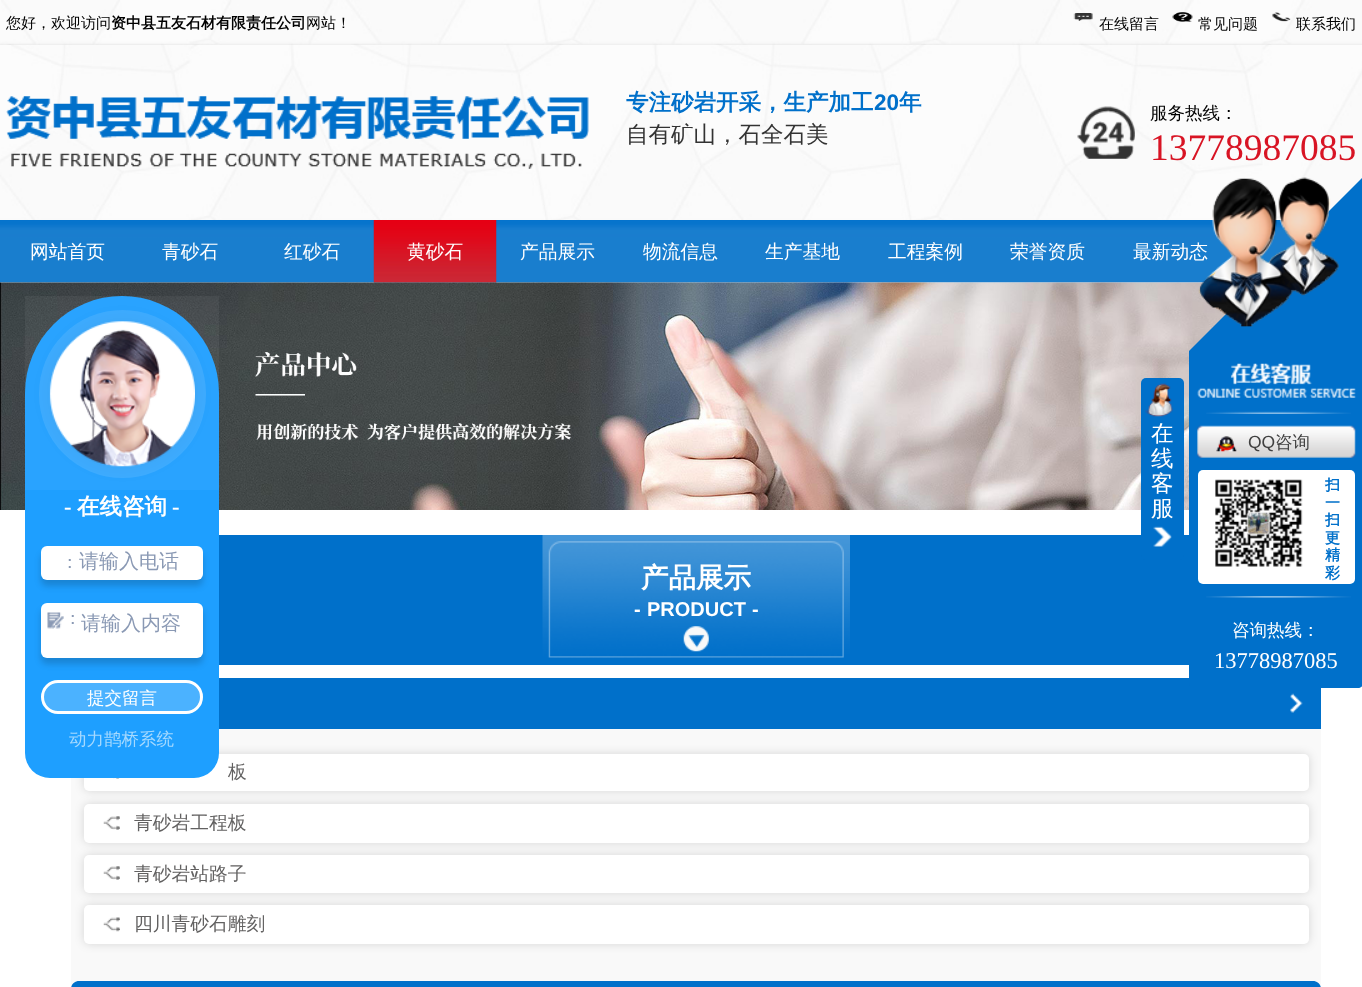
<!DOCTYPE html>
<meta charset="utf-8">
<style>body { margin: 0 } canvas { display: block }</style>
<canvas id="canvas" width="1362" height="987"></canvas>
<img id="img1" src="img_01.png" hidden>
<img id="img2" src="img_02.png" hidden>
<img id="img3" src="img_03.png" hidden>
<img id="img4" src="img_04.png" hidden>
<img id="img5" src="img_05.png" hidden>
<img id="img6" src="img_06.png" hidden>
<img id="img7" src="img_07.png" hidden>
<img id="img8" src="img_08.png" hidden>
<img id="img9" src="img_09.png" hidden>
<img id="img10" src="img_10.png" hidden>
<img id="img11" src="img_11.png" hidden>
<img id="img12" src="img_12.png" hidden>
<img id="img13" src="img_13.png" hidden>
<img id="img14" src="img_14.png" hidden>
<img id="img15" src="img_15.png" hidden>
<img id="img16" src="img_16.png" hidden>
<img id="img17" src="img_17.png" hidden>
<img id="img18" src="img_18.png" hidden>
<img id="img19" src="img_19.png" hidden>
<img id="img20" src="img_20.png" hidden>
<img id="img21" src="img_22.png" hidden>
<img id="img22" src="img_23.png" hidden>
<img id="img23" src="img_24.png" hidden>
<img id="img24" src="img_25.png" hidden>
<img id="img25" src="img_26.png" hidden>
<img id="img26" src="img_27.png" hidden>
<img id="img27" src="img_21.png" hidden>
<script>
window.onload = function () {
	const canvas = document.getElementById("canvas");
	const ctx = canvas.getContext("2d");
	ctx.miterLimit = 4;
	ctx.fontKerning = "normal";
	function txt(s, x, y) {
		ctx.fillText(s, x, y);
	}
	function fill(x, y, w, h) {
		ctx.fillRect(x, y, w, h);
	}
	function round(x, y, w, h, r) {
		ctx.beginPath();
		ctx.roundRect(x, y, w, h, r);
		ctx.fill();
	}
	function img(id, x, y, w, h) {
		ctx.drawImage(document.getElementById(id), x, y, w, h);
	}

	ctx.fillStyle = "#FFFFFF";
	fill(0, 0, 1362, 987);
	img("img1", 0, 0, 1362, 45);
	img("img2", 1073, 13, 20, 8);
	img("img3", 1172, 12, 21, 10);
	img("img4", 1272, 12, 19, 10);
	img("img5", 0, 45, 1362, 175);
	img("img6", 6, 96, 583, 73);
	img("img7", 1077, 106, 58, 53);
	img("img8", 0, 220, 1296, 63);
	img("img9", 373, 220, 124, 63);
	img("img10", 0, 282, 1227, 228);
	ctx.fillStyle = "#1E9FFF";
	ctx.beginPath();
	ctx.roundRect(25, 296, 194, 194, [97, 97, 0, 0]);
	ctx.fill();
	ctx.fillStyle = "rgba(255, 255, 255, 0.05)";
	fill(25, 296, 194, 194);
	ctx.fillStyle = "rgba(255, 255, 255, 0.1)";
	round(39, 310, 167, 168, 83.5);
	ctx.fillStyle = "#F9F9F9";
	fill(71, 729, 1250, 258);
	ctx.fillStyle = "rgba(0, 0, 0, 0.14)";
	ctx.filter = "blur(5px)";
	ctx.beginPath();
	ctx.roundRect(84, 754, 1225, 37, 5);
	ctx.fill();
	ctx.filter = "none";
	ctx.fillStyle = "#FFFFFF";
	round(84, 754, 1225, 37, 5);
	ctx.fillStyle = "#1E9FFF";
	ctx.beginPath();
	ctx.roundRect(25, 490, 194, 288, [0, 0, 25, 25]);
	ctx.fill();
	ctx.fillStyle = "rgba(0, 0, 0, 0.05)";
	ctx.filter = "blur(9.5px)";
	ctx.beginPath();
	ctx.roundRect(50, 321, 145, 145, 72.5);
	ctx.fill();
	ctx.filter = "none";
	ctx.fillStyle = "rgba(30, 159, 255, 0.6)";
	ctx.beginPath();
	ctx.arc(122.5, 393.5, 72.5, 0, Math.PI * 2);
	ctx.fill();
	img("img11", 49, 321, 146, 146);
	ctx.fillStyle = "rgba(0, 0, 0, 0.17)";
	ctx.filter = "blur(3px)";
	ctx.beginPath();
	ctx.roundRect(41, 553, 162, 33, 6);
	ctx.fill();
	ctx.filter = "none";
	ctx.fillStyle = "#FFFFFF";
	round(41, 546, 162, 34, 6);
	ctx.fillStyle = "rgba(0, 0, 0, 0.17)";
	ctx.filter = "blur(3px)";
	ctx.beginPath();
	ctx.roundRect(41, 609, 162, 55, 6);
	ctx.fill();
	ctx.filter = "none";
	ctx.fillStyle = "#FFFFFF";
	round(41, 603, 162, 55, 6);
	img("img12", 47, 612, 17, 17);
	ctx.fillStyle = "#4BB2FF";
	ctx.beginPath();
	ctx.roundRect(42.5, 681.5, 159, 31, 15.5);
	ctx.fill();
	ctx.strokeStyle = "#FFFFFF";
	ctx.lineWidth = 3;
	ctx.stroke();
	ctx.fillStyle = "#0070CA";
	fill(219, 535, 970, 130);
	img("img13", 542, 535, 308, 123);
	img("img14", 683, 626, 26, 26);
	fill(219, 678, 1102, 51);
	img("img15", 1290, 693, 13, 20);
	img("img16", 113, 778, 7, 1);
	ctx.fillStyle = "rgba(0, 0, 0, 0.14)";
	ctx.filter = "blur(5px)";
	ctx.beginPath();
	ctx.roundRect(84, 804, 1225, 39, 5);
	ctx.fill();
	ctx.filter = "none";
	ctx.fillStyle = "#FFFFFF";
	round(84, 804, 1225, 39, 5);
	img("img17", 103, 816, 17, 14);
	ctx.fillStyle = "rgba(0, 0, 0, 0.14)";
	ctx.filter = "blur(5px)";
	ctx.beginPath();
	ctx.roundRect(84, 855, 1225, 38, 5);
	ctx.fill();
	ctx.filter = "none";
	ctx.fillStyle = "#FFFFFF";
	round(84, 855, 1225, 38, 5);
	img("img17", 103, 866, 17, 14);
	ctx.fillStyle = "rgba(0, 0, 0, 0.14)";
	ctx.filter = "blur(5px)";
	ctx.beginPath();
	ctx.roundRect(84, 905, 1225, 39, 5);
	ctx.fill();
	ctx.filter = "none";
	ctx.fillStyle = "#FFFFFF";
	round(84, 905, 1225, 39, 5);
	img("img18", 103, 917, 17, 15);
	ctx.fillStyle = "#0070CA";
	ctx.beginPath();
	ctx.moveTo(79, 981);
	ctx.lineTo(1313, 981);
	ctx.bezierCurveTo(1317.5, 981, 1321, 984.5, 1321, 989);
	ctx.lineTo(1321, 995);
	ctx.lineTo(71, 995);
	ctx.lineTo(71, 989);
	ctx.bezierCurveTo(71, 984.5, 74.5, 981, 79, 981);
	ctx.closePath();
	ctx.fill();
	round(1141, 378, 43, 182, 5);
	img("img19", 1153, 526, 19, 21);
	img("img20", 1145, 383, 28, 34);
	ctx.beginPath();
	ctx.moveTo(1189, 351);
	ctx.lineTo(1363, 351);
	ctx.lineTo(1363, 683);
	ctx.bezierCurveTo(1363, 686, 1361, 688, 1358, 688);
	ctx.lineTo(1194, 688);
	ctx.bezierCurveTo(1191, 688, 1189, 686, 1189, 683);
	ctx.closePath();
	ctx.fill();
	img("img21", 1197, 363, 159, 35);
	img("img22", 1206, 411, 145, 3);
	img("img23", 1197, 425, 159, 33);
	img("img24", 1216, 436, 21, 16);
	ctx.fillStyle = "#FFFFFF";
	round(1198, 470, 157, 114, 5);
	img("img25", 1215, 479, 88, 88);
	img("img26", 1206, 596, 145, 2);
	ctx.font = "500 15px WenQuanYi Zen Hei";
	ctx.fillStyle = "#000000";
	txt("您好，欢迎访问", 6, 28);
	ctx.font = "bold 15px WenQuanYi Zen Hei";
	txt("资中县五友石材有限责任公司", 111, 28);
	ctx.font = "500 15px WenQuanYi Zen Hei";
	txt("网站！", 306, 28);
	txt("在线留言", 1099, 29);
	txt("常见问题", 1198, 29);
	txt("联系我们", 1296, 29);
	ctx.font = "bold 22.5px WenQuanYi Zen Hei";
	ctx.fillStyle = "#0070CA";
	txt("专注砂岩开采，生产加工", 626, 110);
	ctx.font = "bold 22.5px Liberation Sans";
	txt("20", 874, 110);
	ctx.font = "bold 22.5px WenQuanYi Zen Hei";
	txt("年", 899, 110);
	ctx.font = "500 22.5px WenQuanYi Zen Hei";
	ctx.fillStyle = "#333333";
	txt("自有矿山，石全石美", 626, 142);
	ctx.font = "500 17.5px WenQuanYi Zen Hei";
	ctx.fillStyle = "#000000";
	txt("服务热线：", 1150, 119);
	ctx.font = "37.5px Liberation Serif";
	ctx.fillStyle = "#D81424";
	txt("13778987085", 1150, 160);
	ctx.font = "500 18.75px WenQuanYi Zen Hei";
	ctx.fillStyle = "#FFFFFF";
	txt("网站首页", 30, 258);
	txt("青砂石", 162, 258);
	txt("红砂石", 284, 258);
	txt("黄砂石", 407, 258);
	txt("产品展示", 520, 258);
	txt("物流信息", 643, 258);
	txt("生产基地", 765, 258);
	txt("工程案例", 888, 258);
	txt("荣誉资质", 1010, 258);
	txt("最新动态", 1133, 258);
	ctx.font = "bold 22.5px Liberation Serif";
	txt("-", 64, 514);
	ctx.font = "bold 22.5px WenQuanYi Zen Hei";
	txt("在线咨询", 77, 514);
	ctx.font = "bold 22.5px Liberation Serif";
	txt("-", 172, 514);
	ctx.font = "500 17.5px WenQuanYi Zen Hei";
	ctx.fillStyle = "#8A99B4";
	txt("：", 61, 568);
	ctx.font = "500 20px WenQuanYi Zen Hei";
	txt("请输入电话", 79, 568);
	ctx.font = "500 17.5px WenQuanYi Zen Hei";
	txt("：", 64, 624);
	ctx.font = "500 20px WenQuanYi Zen Hei";
	txt("请输入内容", 81, 630);
	ctx.font = "500 17.5px WenQuanYi Zen Hei";
	ctx.fillStyle = "#FFFFFF";
	txt("提交留言", 87, 704);
	ctx.fillStyle = "#A5D9FF";
	txt("动力鹊桥系统", 69, 745);
	ctx.font = "bold 27.5px WenQuanYi Zen Hei";
	ctx.fillStyle = "#FFFFFF";
	txt("产品展示", 641, 587);
	ctx.font = "bold 20px Liberation Sans";
	txt("-", 634, 616);
	txt("PRODUCT", 647, 616);
	txt("-", 752, 616);
	ctx.font = "500 18.75px WenQuanYi Zen Hei";
	ctx.fillStyle = "#626161";
	txt("板", 228, 778);
	txt("青砂岩工程板", 134, 829);
	txt("青砂岩站路子", 134, 880);
	txt("四川青砂石雕刻", 134, 930);
	ctx.font = "500 22.5px WenQuanYi Zen Hei";
	ctx.fillStyle = "#FFFFFF";
	txt("在", 1151, 441);
	txt("线", 1151, 466);
	txt("客", 1151, 491);
	txt("服", 1151, 516);
	ctx.fillStyle = "#0070CA";
	ctx.beginPath();
	ctx.moveTo(1362, 178);
	ctx.lineTo(1189, 351);
	ctx.lineTo(1362, 351);
	ctx.closePath();
	ctx.fill();
	img("img27", 1198, 177, 141, 150);
	ctx.font = "17.5px Liberation Sans";
	ctx.fillStyle = "#404040";
	txt("QQ", 1248, 448);
	ctx.font = "500 17.5px WenQuanYi Zen Hei";
	txt("咨询", 1275, 448);
	ctx.font = "bold 15px WenQuanYi Zen Hei";
	ctx.fillStyle = "#0070CA";
	txt("扫", 1325, 490);
	txt("一", 1325, 508);
	txt("扫", 1325, 525);
	txt("更", 1325, 543);
	txt("精", 1325, 560);
	txt("彩", 1325, 578);
	ctx.font = "500 17.5px WenQuanYi Zen Hei";
	ctx.fillStyle = "#FFFFFF";
	txt("咨询热线：", 1232, 636);
	ctx.font = "22.5px Liberation Serif";
	txt("13778987085", 1214, 668);
};
</script>
